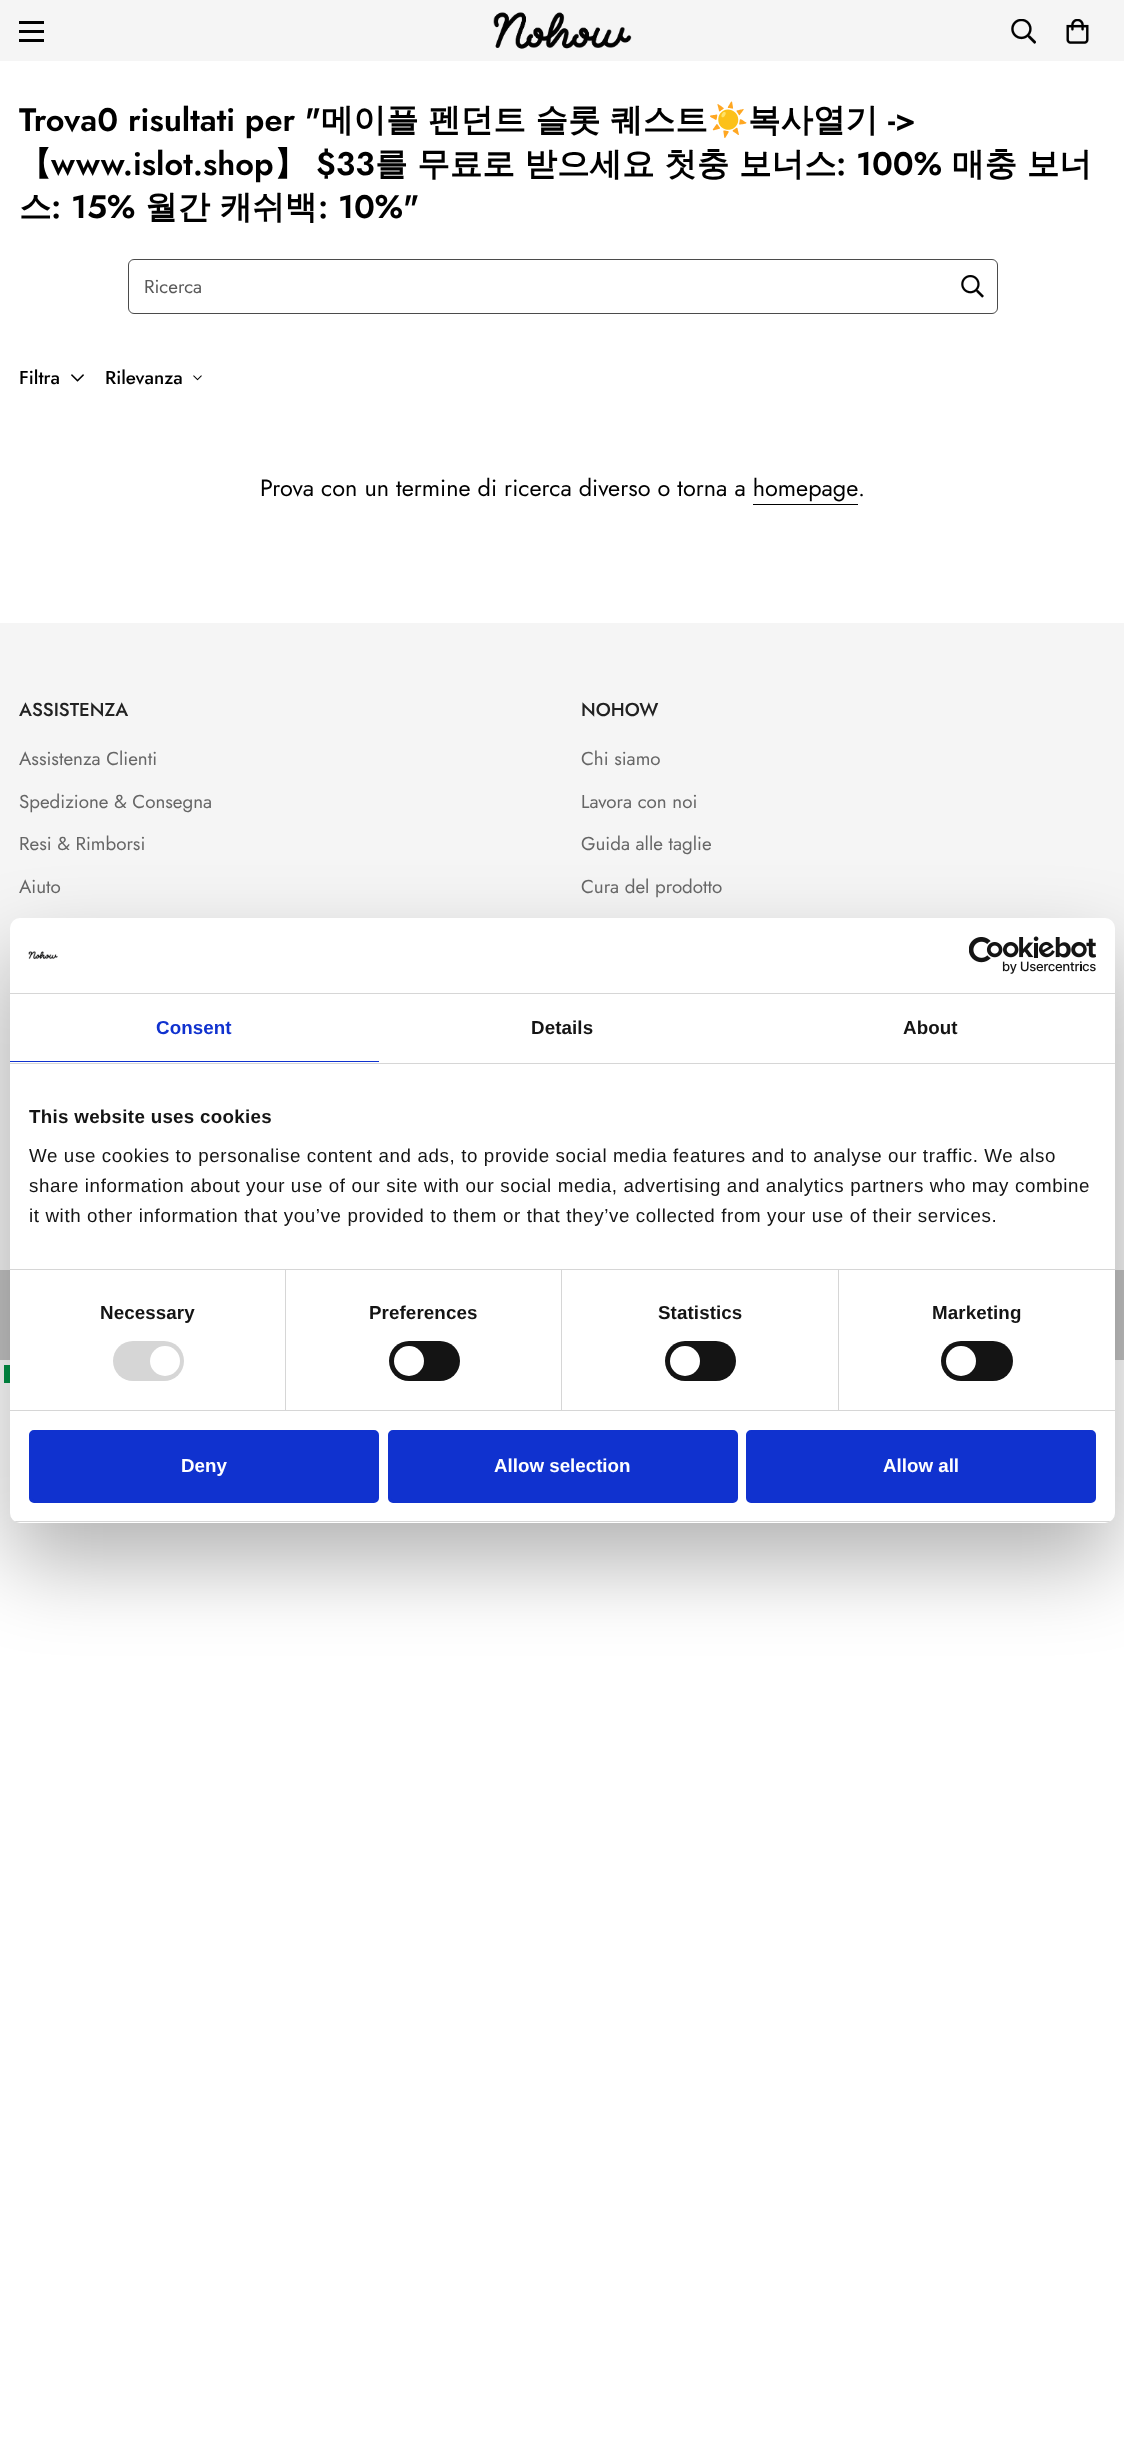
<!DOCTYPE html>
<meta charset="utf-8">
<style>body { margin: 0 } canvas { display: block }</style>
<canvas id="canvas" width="1124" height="2440"></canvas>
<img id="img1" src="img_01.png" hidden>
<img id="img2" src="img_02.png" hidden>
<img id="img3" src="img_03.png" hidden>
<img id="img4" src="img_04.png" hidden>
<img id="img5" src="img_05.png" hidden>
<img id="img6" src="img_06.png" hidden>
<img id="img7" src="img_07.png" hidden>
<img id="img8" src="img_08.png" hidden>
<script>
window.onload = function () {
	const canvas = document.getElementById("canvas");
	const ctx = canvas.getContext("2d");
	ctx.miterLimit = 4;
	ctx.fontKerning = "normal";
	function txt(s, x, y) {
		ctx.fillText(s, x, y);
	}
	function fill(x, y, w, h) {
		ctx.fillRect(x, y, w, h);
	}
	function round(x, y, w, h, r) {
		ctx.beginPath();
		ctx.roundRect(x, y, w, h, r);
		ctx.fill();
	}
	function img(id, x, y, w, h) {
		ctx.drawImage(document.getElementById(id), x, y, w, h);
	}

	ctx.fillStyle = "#FFFFFF";
	fill(0, 0, 1124, 2440);
	ctx.fillStyle = "#F5F5F5";
	fill(0, 0, 1124, 61);
	ctx.fillStyle = "#000000";
	fill(19, 30, 25, 3);
	fill(19, 21, 25, 3);
	fill(19, 39, 25, 3);
	img("img1", 493, 12, 139, 37);
	img("img2", 1011, 19, 25, 25);
	img("img3", 1066, 19, 23, 25);
	ctx.beginPath();
	ctx.roundRect(128.5, 259.5, 869, 54, 5.5);
	ctx.strokeStyle = "#4B4B4B";
	ctx.stroke();
	img("img4", 961, 275, 23, 23);
	img("img5", 71, 374, 13, 8);
	img("img6", 193, 375, 9, 6);
	fill(753, 504, 105, 1);
	ctx.fillStyle = "#F5F5F5";
	fill(0, 623, 1124, 647);
	ctx.fillStyle = "#C4C4C4";
	fill(0, 1270, 1124, 90);
	ctx.fillStyle = "#009246";
	fill(4, 1365, 6, 18);
	ctx.fillStyle = "rgba(0, 0, 0, 0.3)";
	ctx.filter = "blur(42.5px)";
	ctx.beginPath();
	ctx.roundRect(10, 958, 1105, 605, 10);
	ctx.fill();
	ctx.filter = "none";
	ctx.fillStyle = "#FFFFFF";
	round(10, 918, 1105, 605, 10);
	ctx.fillStyle = "#D6D6D6";
	fill(10, 993, 1105, 1);
	img("img7", 28, 951, 30, 8);
	img("img8", 969, 936, 127, 38);
	fill(10, 1063, 1105, 1);
	ctx.fillStyle = "#1032CF";
	fill(10, 1061, 369, 1);
	ctx.fillStyle = "#D6D6D6";
	fill(10, 1269, 1105, 1);
	fill(10, 1410, 1105, 1);
	fill(285, 1270, 1, 140);
	round(113, 1341, 71, 40, 20);
	ctx.fillStyle = "#FFFFFF";
	ctx.beginPath();
	ctx.arc(165, 1361, 15, 0, Math.PI * 2);
	ctx.fill();
	ctx.fillStyle = "#D6D6D6";
	fill(561, 1270, 1, 140);
	ctx.fillStyle = "#141414";
	round(389, 1341, 71, 40, 20);
	ctx.fillStyle = "#FFFFFF";
	ctx.beginPath();
	ctx.arc(409, 1361, 15, 0, Math.PI * 2);
	ctx.fill();
	ctx.fillStyle = "#D6D6D6";
	fill(838, 1270, 1, 140);
	ctx.fillStyle = "#141414";
	round(665, 1341, 71, 40, 20);
	ctx.fillStyle = "#FFFFFF";
	ctx.beginPath();
	ctx.arc(685, 1361, 15, 0, Math.PI * 2);
	ctx.fill();
	ctx.fillStyle = "#141414";
	round(941, 1341, 72, 40, 20);
	ctx.fillStyle = "#FFFFFF";
	ctx.beginPath();
	ctx.arc(961, 1361, 15, 0, Math.PI * 2);
	ctx.fill();
	ctx.save();
	ctx.beginPath();
	ctx.roundRect(10, 918, 1105, 605, 10);
	ctx.clip();
	ctx.fillStyle = "#D6D6D6";
	fill(10, 1521, 1105, 1);
	ctx.restore();
	ctx.fillStyle = "#1032CF";
	ctx.beginPath();
	ctx.roundRect(30.5, 1431.5, 347, 70, 3.5);
	ctx.fill();
	ctx.strokeStyle = "#1032CF";
	ctx.lineWidth = 3;
	ctx.stroke();
	ctx.beginPath();
	ctx.roundRect(389.5, 1431.5, 347, 70, 3.5);
	ctx.fill();
	ctx.stroke();
	ctx.beginPath();
	ctx.roundRect(747.5, 1431.5, 347, 70, 3.5);
	ctx.fill();
	ctx.stroke();
	ctx.font = "600 32.5px Jost";
	ctx.fillStyle = "#000000";
	txt("Trova0 risultati per \"", 19, 131);
	ctx.font = "bold 32.5px WenQuanYi Zen Hei";
	txt("메이플 펜던트 슬롯 퀘스트", 321, 131);
	ctx.font = "bold 32.5px Noto Color Emoji";
	txt("☀️", 708, 131);
	ctx.font = "bold 32.5px WenQuanYi Zen Hei";
	txt("복사열기", 748, 131);
	ctx.font = "600 32.5px Jost";
	txt("->", 888, 131);
	ctx.font = "bold 32.5px WenQuanYi Zen Hei";
	txt("【", 19, 175);
	ctx.font = "600 32.5px Jost";
	txt("www.islot.shop", 51, 175);
	ctx.font = "bold 32.5px WenQuanYi Zen Hei";
	txt("】", 274, 175);
	ctx.font = "600 32.5px Jost";
	txt("$33", 316, 175);
	ctx.font = "bold 32.5px WenQuanYi Zen Hei";
	txt("를 무료로 받으세요 첫충 보너스", 375, 175);
	ctx.font = "600 32.5px Jost";
	txt(": 100%", 836, 175);
	ctx.font = "bold 32.5px WenQuanYi Zen Hei";
	txt("매충 보너", 952, 175);
	txt("스", 19, 218);
	ctx.font = "600 32.5px Jost";
	txt(": 15%", 51, 218);
	ctx.font = "bold 32.5px WenQuanYi Zen Hei";
	txt("월간 캐쉬백", 145, 218);
	ctx.font = "600 32.5px Jost";
	txt(": 10%\"", 318, 218);
	ctx.font = "18.75px Jost";
	ctx.fillStyle = "#595959";
	txt("Ricerca", 144, 293);
	ctx.font = "500 18.75px Jost";
	ctx.fillStyle = "#000000";
	txt("Filtra", 19, 384);
	txt("Rilevanza", 105, 384);
	ctx.font = "23.45px Jost";
	txt("Prova con un termine di ricerca diverso o torna a homepage", 260, 496);
	txt(".", 858, 496);
	ctx.font = "500 18.75px Jost";
	ctx.fillStyle = "#222222";
	txt("ASSISTENZA", 19, 716);
	ctx.font = "18.75px Jost";
	ctx.fillStyle = "#666666";
	txt("Assistenza Clienti", 19, 765);
	txt("Spedizione & Consegna", 19, 808);
	txt("Resi & Rimborsi", 19, 850);
	txt("Aiuto", 19, 893);
	ctx.font = "500 18.75px Jost";
	ctx.fillStyle = "#222222";
	txt("NOHOW", 581, 716);
	ctx.font = "18.75px Jost";
	ctx.fillStyle = "#666666";
	txt("Chi siamo", 581, 765);
	txt("Lavora con noi", 581, 808);
	txt("Guida alle taglie", 581, 850);
	txt("Cura del prodotto", 581, 893);
	ctx.letterSpacing = "0.1px";
	ctx.font = "bold 18.75px Liberation Sans";
	ctx.fillStyle = "#1032CF";
	txt("Consent", 156, 1034);
	ctx.fillStyle = "#141414";
	txt("Details", 531, 1034);
	txt("About", 903, 1034);
	ctx.letterSpacing = "0.3px";
	txt("This website uses cookies", 29, 1123);
	ctx.letterSpacing = "0.62px";
	ctx.font = "18.75px Liberation Sans";
	txt("We use cookies to personalise content and ads, to provide social media features and to analyse our traffic. We also", 29, 1162);
	txt("share information about your use of our site with our social media, advertising and analytics partners who may combine", 29, 1192);
	txt("it with other information that you’ve provided to them or that they’ve collected from your use of their services.", 29, 1222);
	ctx.letterSpacing = "0.1px";
	ctx.font = "bold 18.75px Liberation Sans";
	txt("Necessary", 100, 1319);
	txt("Preferences", 369, 1319);
	txt("Statistics", 658, 1319);
	txt("Marketing", 932, 1319);
	ctx.letterSpacing = "0px";
	ctx.fillStyle = "#FFFFFF";
	txt("Deny", 181, 1472);
	txt("Allow selection", 494, 1472);
	txt("Allow all", 883, 1472);
};
</script>
